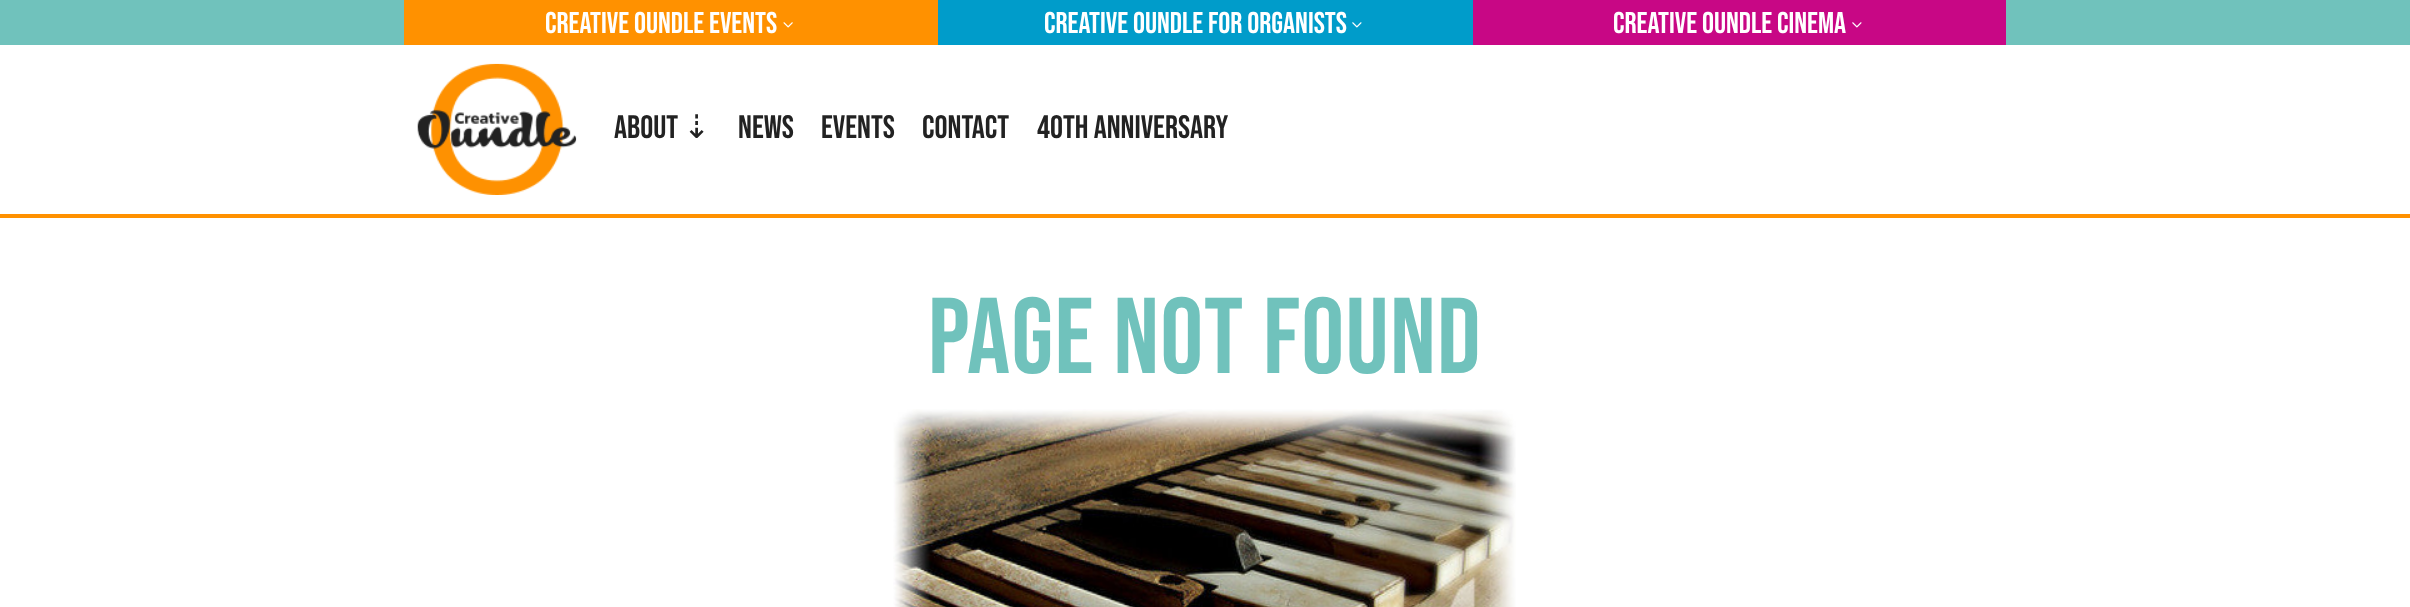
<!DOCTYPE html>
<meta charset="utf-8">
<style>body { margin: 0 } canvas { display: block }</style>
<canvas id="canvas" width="2410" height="607"></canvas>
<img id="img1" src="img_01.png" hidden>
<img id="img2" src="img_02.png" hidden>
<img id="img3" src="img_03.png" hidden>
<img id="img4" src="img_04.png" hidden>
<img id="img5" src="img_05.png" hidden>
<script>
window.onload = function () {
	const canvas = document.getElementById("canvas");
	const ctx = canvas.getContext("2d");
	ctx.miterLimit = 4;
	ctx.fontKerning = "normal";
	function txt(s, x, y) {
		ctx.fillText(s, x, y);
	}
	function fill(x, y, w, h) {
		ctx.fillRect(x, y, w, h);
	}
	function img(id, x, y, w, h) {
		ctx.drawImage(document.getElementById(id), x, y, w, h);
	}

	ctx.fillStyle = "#FFFFFF";
	fill(0, 0, 2410, 607);
	ctx.fillStyle = "#70C2BC";
	fill(0, 0, 2410, 45);
	ctx.fillStyle = "#FF9100";
	fill(404, 0, 534, 45);
	img("img1", 783, 22, 10, 6);
	ctx.fillStyle = "#009CCA";
	fill(938, 0, 535, 45);
	img("img2", 1352, 22, 10, 6);
	ctx.fillStyle = "#C80785";
	fill(1473, 0, 533, 45);
	img("img3", 1852, 22, 10, 6);
	ctx.fillStyle = "#FF9100";
	fill(0, 214, 2410, 4);
	img("img4", 417, 63, 160, 132);
	img("img5", 893, 409, 623, 198);
	ctx.font = "30px Bebas Neue";
	ctx.fillStyle = "#FFFFFF";
	txt("CREATIVE OUNDLE EVENTS", 545, 33);
	txt("CREATIVE OUNDLE FOR ORGANISTS", 1044, 33);
	txt("CREATIVE OUNDLE CINEMA", 1613, 33);
	ctx.font = "32.5px Bebas Neue";
	ctx.fillStyle = "#222222";
	txt("ABOUT", 614, 138);
	ctx.font = "32.5px DejaVu Sans";
	txt("⇣", 683, 138);
	ctx.font = "32.5px Bebas Neue";
	txt("NEWS", 738, 138);
	txt("EVENTS", 821, 138);
	txt("CONTACT", 922, 138);
	txt("40th ANNIVERSARY", 1037, 138);
	ctx.letterSpacing = "1.25px";
	ctx.font = "107.5px Bebas Neue";
	ctx.fillStyle = "#70C2BC";
	txt("PAGE NOT FOUND", 928, 373);
};
</script>
